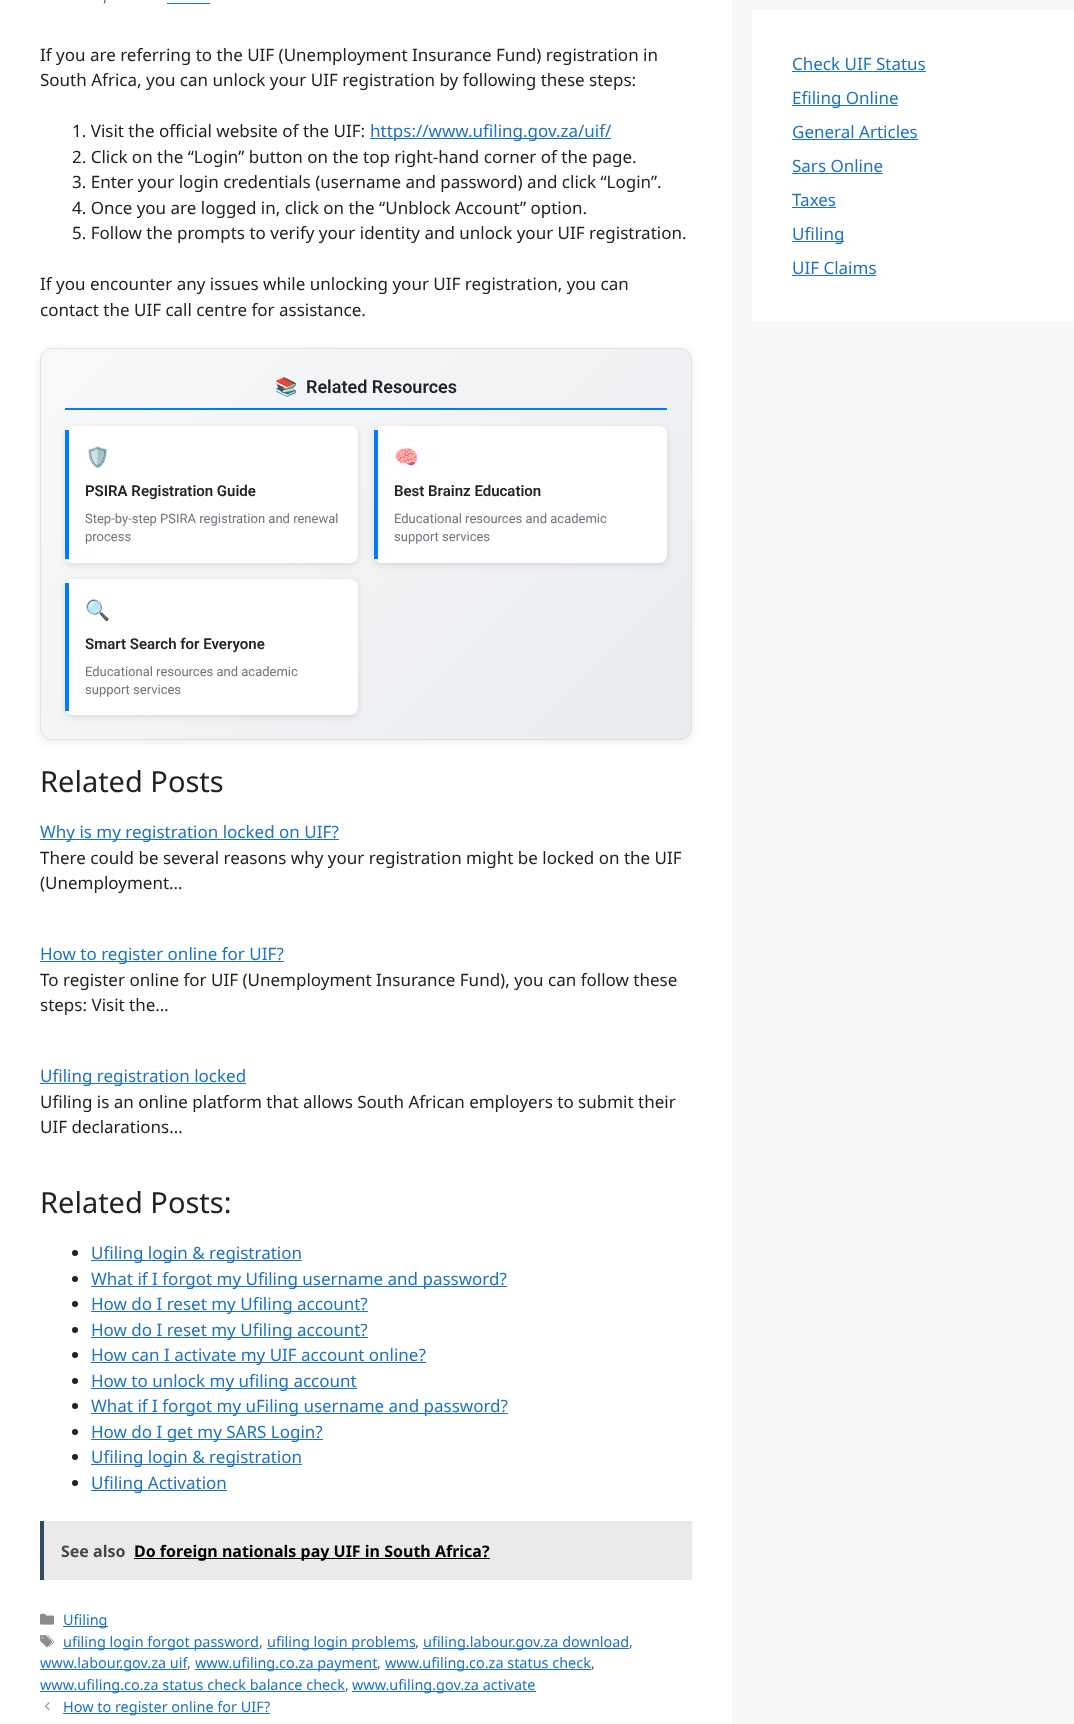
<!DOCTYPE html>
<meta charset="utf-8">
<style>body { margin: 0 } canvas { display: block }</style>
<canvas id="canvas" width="1074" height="1724"></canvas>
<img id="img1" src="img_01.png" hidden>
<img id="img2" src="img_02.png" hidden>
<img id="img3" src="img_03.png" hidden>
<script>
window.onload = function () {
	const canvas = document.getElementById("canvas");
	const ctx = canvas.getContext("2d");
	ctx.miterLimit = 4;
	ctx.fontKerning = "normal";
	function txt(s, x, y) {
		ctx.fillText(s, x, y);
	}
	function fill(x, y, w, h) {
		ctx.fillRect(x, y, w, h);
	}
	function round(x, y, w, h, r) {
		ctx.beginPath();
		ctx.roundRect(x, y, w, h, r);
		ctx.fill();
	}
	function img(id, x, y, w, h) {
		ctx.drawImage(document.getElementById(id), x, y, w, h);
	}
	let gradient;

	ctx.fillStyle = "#F7F8F9";
	fill(0, 0, 1074, 1724);
	ctx.fillStyle = "#FFFFFF";
	fill(0, 0, 732, 1724);
	ctx.fillStyle = "#1E73BE";
	fill(167, 3, 43, 1);
	fill(370, 138, 241, 1);
	ctx.fillStyle = "rgba(0, 0, 0, 0.08)";
	ctx.filter = "blur(4px)";
	ctx.beginPath();
	ctx.roundRect(40, 350, 652, 392, 12);
	ctx.fill();
	ctx.filter = "none";
	ctx.save();
	ctx.beginPath();
	ctx.roundRect(40, 348, 652, 392, 12);
	ctx.clip();
	gradient = ctx.createLinearGradient(106, 284, 626, 804);
	gradient.addColorStop(0, "#F8F9FA");
	gradient.addColorStop(1, "#E9ECEF");
	ctx.fillStyle = gradient;
	fill(41, 349, 650, 390);
	ctx.restore();
	ctx.beginPath();
	ctx.roundRect(40.5, 348.5, 651, 391, 11.5);
	ctx.strokeStyle = "#DEE2E6";
	ctx.stroke();
	ctx.fillStyle = "#007BFF";
	fill(65, 408, 602, 2);
	ctx.fillStyle = "rgba(0, 0, 0, 0.1)";
	ctx.filter = "blur(3px)";
	ctx.beginPath();
	ctx.roundRect(65, 428, 293, 137, 8);
	ctx.fill();
	ctx.filter = "none";
	ctx.fillStyle = "#FFFFFF";
	round(65, 426, 293, 137, 8);
	ctx.fillStyle = "#007BFF";
	fill(65, 430, 4, 129);
	ctx.fillStyle = "rgba(0, 0, 0, 0.1)";
	ctx.filter = "blur(3px)";
	ctx.beginPath();
	ctx.roundRect(374, 428, 293, 137, 8);
	ctx.fill();
	ctx.filter = "none";
	ctx.fillStyle = "#FFFFFF";
	round(374, 426, 293, 137, 8);
	ctx.fillStyle = "#007BFF";
	fill(374, 430, 4, 129);
	ctx.fillStyle = "rgba(0, 0, 0, 0.1)";
	ctx.filter = "blur(3px)";
	ctx.beginPath();
	ctx.roundRect(65, 581, 293, 136, 8);
	ctx.fill();
	ctx.filter = "none";
	ctx.fillStyle = "#FFFFFF";
	round(65, 579, 293, 136, 8);
	ctx.fillStyle = "#007BFF";
	fill(65, 583, 4, 128);
	ctx.fillStyle = "#1E73BE";
	fill(40, 839, 299, 1);
	fill(40, 961, 244, 1);
	fill(40, 1083, 206, 1);
	ctx.fillStyle = "#222222";
	ctx.beginPath();
	ctx.arc(75, 1253, 3, 0, Math.PI * 2);
	ctx.fill();
	ctx.fillStyle = "#1E73BE";
	fill(91, 1260, 211, 1);
	ctx.fillStyle = "#222222";
	ctx.beginPath();
	ctx.arc(75, 1279, 3, 0, Math.PI * 2);
	ctx.fill();
	ctx.fillStyle = "#1E73BE";
	fill(91, 1286, 416, 1);
	ctx.fillStyle = "#222222";
	ctx.beginPath();
	ctx.arc(75, 1304, 3, 0, Math.PI * 2);
	ctx.fill();
	ctx.fillStyle = "#1E73BE";
	fill(91, 1311, 277, 1);
	ctx.fillStyle = "#222222";
	ctx.beginPath();
	ctx.arc(75, 1330, 3, 0, Math.PI * 2);
	ctx.fill();
	ctx.fillStyle = "#1E73BE";
	fill(91, 1337, 277, 1);
	ctx.fillStyle = "#222222";
	ctx.beginPath();
	ctx.arc(75, 1355, 3, 0, Math.PI * 2);
	ctx.fill();
	ctx.fillStyle = "#1E73BE";
	fill(91, 1362, 335, 1);
	ctx.fillStyle = "#222222";
	ctx.beginPath();
	ctx.arc(75, 1381, 3, 0, Math.PI * 2);
	ctx.fill();
	ctx.fillStyle = "#1E73BE";
	fill(91, 1388, 266, 1);
	ctx.fillStyle = "#222222";
	ctx.beginPath();
	ctx.arc(75, 1406, 3, 0, Math.PI * 2);
	ctx.fill();
	ctx.fillStyle = "#1E73BE";
	fill(91, 1413, 417, 1);
	ctx.fillStyle = "#222222";
	ctx.beginPath();
	ctx.arc(75, 1432, 3, 0, Math.PI * 2);
	ctx.fill();
	ctx.fillStyle = "#1E73BE";
	fill(91, 1439, 232, 1);
	ctx.fillStyle = "#222222";
	ctx.beginPath();
	ctx.arc(75, 1457, 3, 0, Math.PI * 2);
	ctx.fill();
	ctx.fillStyle = "#1E73BE";
	fill(91, 1464, 211, 1);
	ctx.fillStyle = "#222222";
	ctx.beginPath();
	ctx.arc(75, 1483, 3, 0, Math.PI * 2);
	ctx.fill();
	ctx.fillStyle = "#1E73BE";
	fill(91, 1490, 136, 1);
	ctx.fillStyle = "#EAEAEA";
	fill(44, 1521, 648, 59);
	ctx.fillStyle = "#34495E";
	fill(40, 1521, 4, 59);
	ctx.fillStyle = "#000000";
	fill(134, 1558, 356, 1);
	img("img1", 40, 1613, 14, 12);
	ctx.fillStyle = "#1E73BE";
	fill(63, 1626, 45, 1);
	img("img2", 40, 1635, 14, 13);
	fill(63, 1648, 196, 1);
	fill(267, 1648, 148, 1);
	fill(423, 1648, 206, 1);
	fill(40, 1669, 147, 1);
	fill(195, 1669, 182, 1);
	fill(385, 1669, 206, 1);
	fill(40, 1691, 305, 1);
	fill(352, 1691, 184, 1);
	img("img3", 45, 1702, 5, 9);
	fill(63, 1713, 207, 1);
	ctx.fillStyle = "#FFFFFF";
	fill(752, 11, 322, 310);
	ctx.fillStyle = "#1E73BE";
	fill(792, 71, 134, 1);
	fill(792, 105, 106, 1);
	fill(792, 139, 126, 1);
	fill(792, 173, 91, 1);
	fill(792, 207, 44, 1);
	fill(792, 241, 52, 1);
	fill(792, 275, 84, 1);
	ctx.font = "14.45px Noto Sans";
	ctx.fillStyle = "#575760";
	txt(",", 103, 2);
	ctx.font = "17px Noto Sans";
	ctx.fillStyle = "#222222";
	txt("If you are referring to the UIF (Unemployment Insurance Fund) registration in", 40, 61);
	txt("South Africa, you can unlock your UIF registration by following these steps:", 40, 86);
	txt("1. Visit the official website of the UIF:", 72, 137);
	ctx.fillStyle = "#1E73BE";
	txt("https://www.ufiling.gov.za/uif/", 370, 137);
	ctx.fillStyle = "#222222";
	txt("2. Click on the “Login” button on the top right-hand corner of the page.", 72, 163);
	txt("3. Enter your login credentials (username and password) and click “Login”.", 72, 188);
	txt("4. Once you are logged in, click on the “Unblock Account” option.", 72, 214);
	txt("5. Follow the prompts to verify your identity and unlock your UIF registration.", 72, 239);
	txt("If you encounter any issues while unlocking your UIF registration, you can", 40, 290);
	txt("contact the UIF call centre for assistance.", 40, 316);
	ctx.font = "bold 18px Noto Color Emoji";
	ctx.fillStyle = "#212529";
	txt("📚", 275, 393);
	ctx.font = "600 18px Roboto";
	txt("Related Resources", 306, 393);
	ctx.font = "20px Noto Color Emoji";
	ctx.fillStyle = "#222222";
	txt("🛡️", 85, 464);
	ctx.font = "600 15px Roboto";
	ctx.fillStyle = "#212529";
	txt("PSIRA Registration Guide", 85, 496);
	ctx.font = "13px Roboto";
	ctx.fillStyle = "#6C757D";
	txt("Step-by-step PSIRA registration and renewal", 85, 523);
	txt("process", 85, 541);
	ctx.font = "20px Noto Color Emoji";
	ctx.fillStyle = "#222222";
	txt("🧠", 394, 464);
	ctx.font = "600 15px Roboto";
	ctx.fillStyle = "#212529";
	txt("Best Brainz Education", 394, 496);
	ctx.font = "13px Roboto";
	ctx.fillStyle = "#6C757D";
	txt("Educational resources and academic", 394, 523);
	txt("support services", 394, 541);
	ctx.font = "20px Noto Color Emoji";
	ctx.fillStyle = "#222222";
	txt("🔍", 85, 617);
	ctx.font = "600 15px Roboto";
	ctx.fillStyle = "#212529";
	txt("Smart Search for Everyone", 85, 649);
	ctx.font = "13px Roboto";
	ctx.fillStyle = "#6C757D";
	txt("Educational resources and academic", 85, 676);
	txt("support services", 85, 694);
	ctx.font = "29px Noto Sans";
	ctx.fillStyle = "#222222";
	txt("Related Posts", 40, 792);
	ctx.font = "17px Noto Sans";
	ctx.fillStyle = "#1E73BE";
	txt("Why is my registration locked on UIF?", 40, 838);
	ctx.fillStyle = "#222222";
	txt("There could be several reasons why your registration might be locked on the UIF", 40, 864);
	txt("(Unemployment…", 40, 889);
	ctx.fillStyle = "#1E73BE";
	txt("How to register online for UIF?", 40, 960);
	ctx.fillStyle = "#222222";
	txt("To register online for UIF (Unemployment Insurance Fund), you can follow these", 40, 986);
	txt("steps: Visit the…", 40, 1011);
	ctx.fillStyle = "#1E73BE";
	txt("Ufiling registration locked", 40, 1082);
	ctx.fillStyle = "#222222";
	txt("Ufiling is an online platform that allows South African employers to submit their", 40, 1108);
	txt("UIF declarations…", 40, 1133);
	ctx.font = "29px Noto Sans";
	txt("Related Posts:", 40, 1213);
	ctx.font = "17px Noto Sans";
	ctx.fillStyle = "#1E73BE";
	txt("Ufiling login & registration", 91, 1259);
	txt("What if I forgot my Ufiling username and password?", 91, 1285);
	txt("How do I reset my Ufiling account?", 91, 1310);
	txt("How do I reset my Ufiling account?", 91, 1336);
	txt("How can I activate my UIF account online?", 91, 1361);
	txt("How to unlock my ufiling account", 91, 1387);
	txt("What if I forgot my uFiling username and password?", 91, 1412);
	txt("How do I get my SARS Login?", 91, 1438);
	txt("Ufiling login & registration", 91, 1463);
	txt("Ufiling Activation", 91, 1489);
	ctx.font = "bold 16px Noto Sans";
	ctx.fillStyle = "#464646";
	txt("See also", 61, 1557);
	ctx.fillStyle = "#000000";
	txt("Do foreign nationals pay UIF in South Africa?", 134, 1557);
	ctx.font = "14.45px Noto Sans";
	ctx.fillStyle = "#1E73BE";
	txt("Ufiling", 63, 1625);
	txt("ufiling login forgot password", 63, 1647);
	ctx.fillStyle = "#575760";
	txt(",", 259, 1647);
	ctx.fillStyle = "#1E73BE";
	txt("ufiling login problems", 267, 1647);
	ctx.fillStyle = "#575760";
	txt(",", 415, 1647);
	ctx.fillStyle = "#1E73BE";
	txt("ufiling.labour.gov.za download", 423, 1647);
	ctx.fillStyle = "#575760";
	txt(",", 629, 1647);
	ctx.fillStyle = "#1E73BE";
	txt("www.labour.gov.za uif", 40, 1668);
	ctx.fillStyle = "#575760";
	txt(",", 187, 1668);
	ctx.fillStyle = "#1E73BE";
	txt("www.ufiling.co.za payment", 195, 1668);
	ctx.fillStyle = "#575760";
	txt(",", 377, 1668);
	ctx.fillStyle = "#1E73BE";
	txt("www.ufiling.co.za status check", 385, 1668);
	ctx.fillStyle = "#575760";
	txt(",", 591, 1668);
	ctx.fillStyle = "#1E73BE";
	txt("www.ufiling.co.za status check balance check", 40, 1690);
	ctx.fillStyle = "#575760";
	txt(",", 345, 1690);
	ctx.fillStyle = "#1E73BE";
	txt("www.ufiling.gov.za activate", 352, 1690);
	txt("How to register online for UIF?", 63, 1712);
	ctx.font = "17px Noto Sans";
	txt("Check UIF Status", 792, 70);
	txt("Efiling Online", 792, 104);
	txt("General Articles", 792, 138);
	txt("Sars Online", 792, 172);
	txt("Taxes", 792, 206);
	txt("Ufiling", 792, 240);
	txt("UIF Claims", 792, 274);
};
</script>
